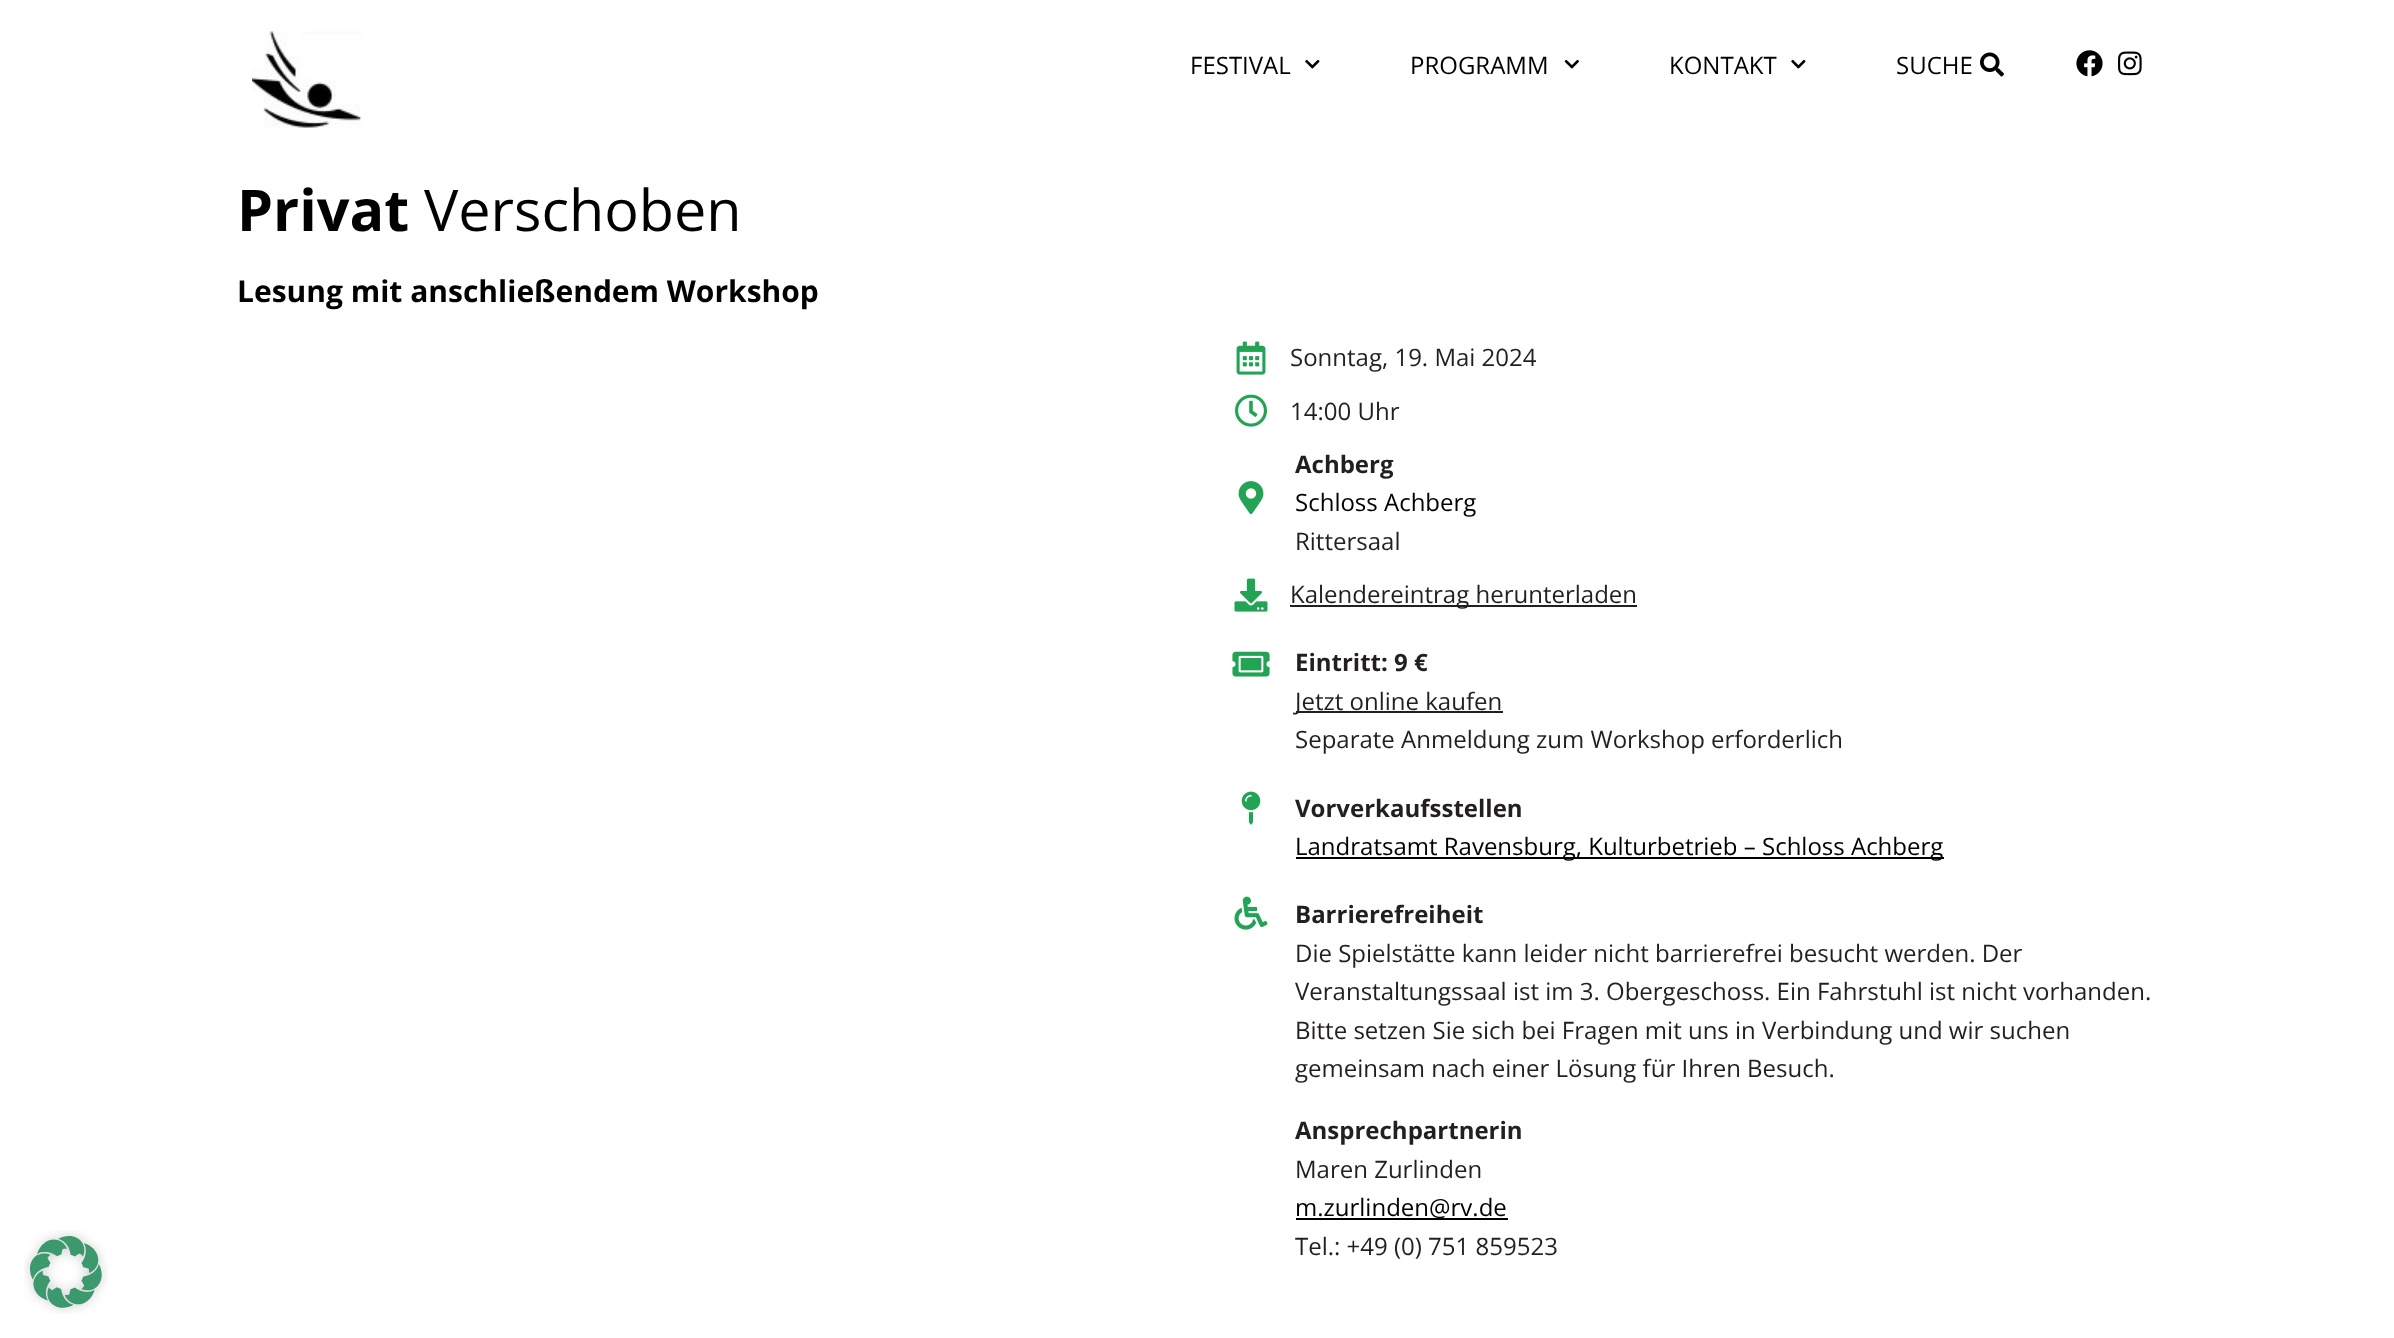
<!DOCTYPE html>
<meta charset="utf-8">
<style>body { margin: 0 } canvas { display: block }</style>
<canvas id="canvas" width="2394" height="1338"></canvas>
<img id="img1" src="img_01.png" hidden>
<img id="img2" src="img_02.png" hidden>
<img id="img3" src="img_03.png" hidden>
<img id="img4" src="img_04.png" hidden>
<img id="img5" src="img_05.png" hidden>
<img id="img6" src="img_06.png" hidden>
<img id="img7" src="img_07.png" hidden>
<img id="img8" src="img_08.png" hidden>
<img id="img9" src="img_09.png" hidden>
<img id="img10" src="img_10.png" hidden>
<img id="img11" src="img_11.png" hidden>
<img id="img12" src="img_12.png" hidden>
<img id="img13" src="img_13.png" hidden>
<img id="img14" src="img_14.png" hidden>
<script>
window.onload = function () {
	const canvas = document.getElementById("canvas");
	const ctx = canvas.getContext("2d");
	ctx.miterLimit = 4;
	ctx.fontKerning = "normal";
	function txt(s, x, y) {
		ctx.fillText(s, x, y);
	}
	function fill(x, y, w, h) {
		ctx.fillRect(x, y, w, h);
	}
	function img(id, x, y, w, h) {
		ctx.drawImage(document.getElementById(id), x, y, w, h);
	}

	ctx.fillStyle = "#FFFFFF";
	fill(0, 0, 2394, 1338);
	img("img1", 252, 31, 110, 97);
	img("img2", 1305, 59, 15, 10);
	img("img3", 1564, 59, 15, 10);
	img("img2", 1791, 59, 15, 10);
	img("img4", 1980, 52, 24, 25);
	img("img5", 2076, 50, 27, 27);
	img("img6", 2118, 51, 24, 25);
	img("img7", 1236, 341, 30, 34);
	img("img8", 1235, 394, 32, 33);
	img("img9", 1238, 481, 26, 34);
	img("img10", 1234, 578, 34, 34);
	ctx.fillStyle = "#231F20";
	fill(1290, 605, 347, 2);
	img("img11", 1232, 651, 38, 26);
	fill(1296, 711, 207, 2);
	img("img12", 1241, 791, 20, 34);
	ctx.fillStyle = "#000000";
	fill(1296, 857, 648, 2);
	img("img13", 1234, 896, 34, 34);
	fill(1296, 1218, 212, 2);
	img("img14", 24, 1230, 84, 84);
	ctx.font = "24px Open Sans";
	txt("FESTIVAL", 1190, 74);
	txt("PROGRAMM", 1410, 74);
	txt("KONTAKT", 1669, 74);
	txt("SUCHE", 1896, 74);
	ctx.font = "bold 57.5px Open Sans";
	txt("Privat", 237, 231);
	ctx.font = "57.5px Open Sans";
	txt("Verschoben", 424, 231);
	ctx.font = "bold 30px Open Sans";
	txt("Lesung mit anschließendem Workshop", 237, 302);
	ctx.font = "24px Open Sans";
	ctx.fillStyle = "#231F20";
	txt("Sonntag, 19. Mai 2024", 1290, 366);
	txt("14:00 Uhr", 1290, 420);
	ctx.font = "bold 24px Open Sans";
	txt("Achberg", 1295, 473);
	ctx.font = "24px Open Sans";
	ctx.fillStyle = "#000000";
	txt("Schloss Achberg", 1295, 511);
	ctx.fillStyle = "#231F20";
	txt("Rittersaal", 1295, 550);
	txt("Kalendereintrag herunterladen", 1290, 603);
	ctx.font = "bold 24px Open Sans";
	txt("Eintritt: 9 €", 1295, 671);
	ctx.font = "24px Open Sans";
	txt("Jetzt online kaufen", 1295, 710);
	txt("Separate Anmeldung zum Workshop erforderlich", 1295, 748);
	ctx.font = "bold 24px Open Sans";
	txt("Vorverkaufsstellen", 1295, 817);
	ctx.font = "24px Open Sans";
	ctx.fillStyle = "#000000";
	txt("Landratsamt Ravensburg, Kulturbetrieb – Schloss Achberg", 1295, 855);
	ctx.font = "bold 24px Open Sans";
	ctx.fillStyle = "#231F20";
	txt("Barrierefreiheit", 1295, 923);
	ctx.font = "24px Open Sans";
	txt("Die Spielstätte kann leider nicht barrierefrei besucht werden. Der", 1295, 962);
	txt("Veranstaltungssaal ist im 3. Obergeschoss. Ein Fahrstuhl ist nicht vorhanden.", 1295, 1000);
	txt("Bitte setzen Sie sich bei Fragen mit uns in Verbindung und wir suchen", 1295, 1039);
	txt("gemeinsam nach einer Lösung für Ihren Besuch.", 1295, 1077);
	ctx.font = "bold 24px Open Sans";
	txt("Ansprechpartnerin", 1295, 1139);
	ctx.font = "24px Open Sans";
	txt("Maren Zurlinden", 1295, 1178);
	ctx.fillStyle = "#000000";
	txt("m.zurlinden@rv.de", 1295, 1216);
	ctx.fillStyle = "#231F20";
	txt("Tel.: +49 (0) 751 859523", 1295, 1255);
};
</script>
